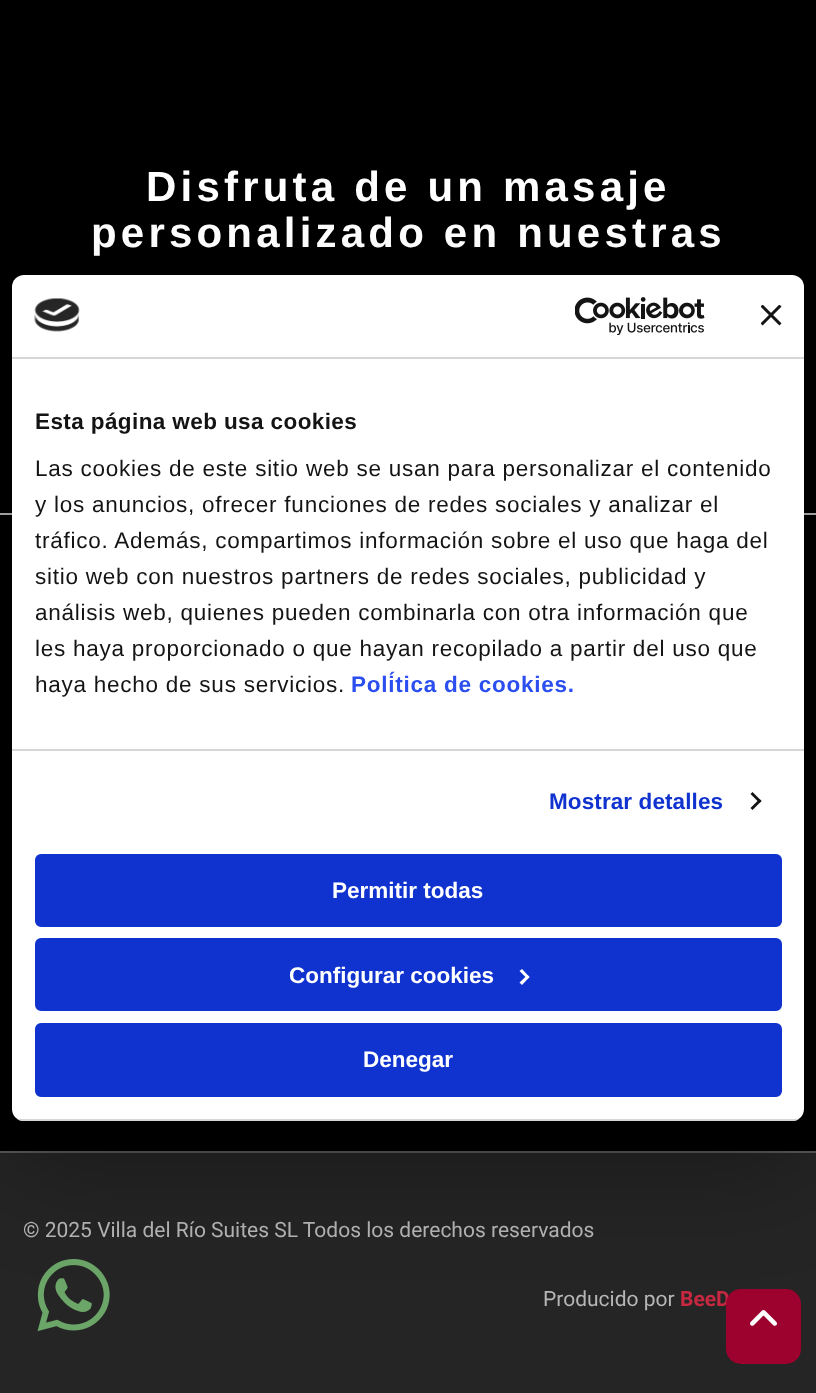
<!DOCTYPE html>
<meta charset="utf-8">
<style>body { margin: 0 } canvas { display: block }</style>
<canvas id="canvas" width="816" height="1393"></canvas>
<img id="img1" src="img_01.png" hidden>
<img id="img2" src="img_05.png" hidden>
<img id="img3" src="img_04.png" hidden>
<img id="img4" src="img_03.png" hidden>
<img id="img5" src="img_02.png" hidden>
<script>
window.onload = function () {
	const canvas = document.getElementById("canvas");
	const ctx = canvas.getContext("2d");
	ctx.miterLimit = 4;
	ctx.fontKerning = "normal";
	function txt(s, x, y) {
		ctx.fillText(s, x, y);
	}
	function fill(x, y, w, h) {
		ctx.fillRect(x, y, w, h);
	}
	function round(x, y, w, h, r) {
		ctx.beginPath();
		ctx.roundRect(x, y, w, h, r);
		ctx.fill();
	}
	function img(id, x, y, w, h) {
		ctx.drawImage(document.getElementById(id), x, y, w, h);
	}

	ctx.fillStyle = "#252525";
	fill(0, 0, 816, 1393);
	ctx.fillStyle = "#000000";
	fill(0, 0, 816, 513);
	fill(0, 515, 816, 636);
	ctx.fillStyle = "#B6B6B6";
	fill(0, 513, 816, 2);
	ctx.fillStyle = "#575757";
	fill(0, 1151, 816, 2);
	img("img1", 37, 1259, 73, 73);
	ctx.letterSpacing = "4.2px";
	ctx.font = "bold 42px Liberation Sans";
	ctx.fillStyle = "#FFFFFF";
	txt("Disfruta de un masaje", 146, 201);
	txt("personalizado en nuestras", 91, 247);
	ctx.letterSpacing = "0px";
	ctx.font = "21px Roboto";
	ctx.fillStyle = "#B6B6B6";
	txt("© 2025 Villa del Río Suites SL Todos los derechos reservados", 23, 1237);
	txt("Producido por", 543, 1306);
	ctx.font = "bold 21px Roboto";
	ctx.fillStyle = "#C62842";
	txt("BeeD", 680, 1306);
	ctx.fillStyle = "#9D012D";
	round(726, 1289, 75, 75, 15);
	img("img2", 750, 1310, 27, 16);
	ctx.fillStyle = "rgba(0, 0, 0, 0.3)";
	ctx.filter = "blur(51px)";
	ctx.beginPath();
	ctx.roundRect(12, 323, 792, 846, 12);
	ctx.fill();
	ctx.filter = "none";
	ctx.fillStyle = "#FFFFFF";
	round(12, 275, 792, 846, 12);
	ctx.fillStyle = "#1032CF";
	ctx.beginPath();
	ctx.roundRect(36.5, 939.5, 744, 70, 4.5);
	ctx.fill();
	ctx.strokeStyle = "#1032CF";
	ctx.lineWidth = 3;
	ctx.stroke();
	ctx.fillStyle = "#FFFFFF";
	ctx.beginPath();
	ctx.moveTo(522, 969);
	ctx.lineTo(529.5, 977);
	ctx.lineTo(527.5, 979);
	ctx.lineTo(519.5, 971);
	ctx.closePath();
	ctx.fill();
	ctx.beginPath();
	ctx.moveTo(527.5, 975);
	ctx.lineTo(529.5, 977);
	ctx.lineTo(522, 985);
	ctx.lineTo(519.5, 982.5);
	ctx.closePath();
	ctx.fill();
	ctx.fillStyle = "#1032CF";
	ctx.beginPath();
	ctx.roundRect(36.5, 1024.5, 744, 71, 4.5);
	ctx.fill();
	ctx.stroke();
	ctx.font = "bold 22.5px Liberation Sans";
	ctx.fillStyle = "#FFFFFF";
	txt("Denegar", 363, 1067);
	txt("Configurar cookies", 289, 983);
	ctx.fillStyle = "#1032CF";
	ctx.beginPath();
	ctx.roundRect(36.5, 855.5, 744, 70, 4.5);
	ctx.fill();
	ctx.stroke();
	ctx.fillStyle = "#FFFFFF";
	txt("Permitir todas", 332, 898);
	ctx.save();
	ctx.beginPath();
	ctx.roundRect(12, 275, 792, 846, 12);
	ctx.clip();
	ctx.fillStyle = "#D6D6D6";
	fill(12, 1119, 792, 2);
	ctx.restore();
	ctx.fillStyle = "#141414";
	ctx.beginPath();
	ctx.moveTo(752.5, 792);
	ctx.lineTo(761.5, 801);
	ctx.lineTo(759.5, 803);
	ctx.lineTo(750.5, 794);
	ctx.closePath();
	ctx.fill();
	ctx.beginPath();
	ctx.moveTo(759.5, 799);
	ctx.lineTo(761.5, 801);
	ctx.lineTo(752.5, 810);
	ctx.lineTo(750.5, 808);
	ctx.closePath();
	ctx.fill();
	ctx.letterSpacing = "0.75px";
	ctx.fillStyle = "#2A4EEF";
	txt("Política de cookies.", 351, 692);
	ctx.font = "22.5px Liberation Sans";
	ctx.fillStyle = "#141414";
	txt("haya hecho de sus servicios.", 35, 692);
	txt("les haya proporcionado o que hayan recopilado a partir del uso que", 35, 656);
	txt("análisis web, quienes pueden combinarla con otra información que", 35, 620);
	txt("sitio web con nuestros partners de redes sociales, publicidad y", 35, 584);
	txt("tráfico. Además, compartimos información sobre el uso que haga del", 35, 548);
	txt("y los anuncios, ofrecer funciones de redes sociales y analizar el", 35, 512);
	txt("Las cookies de este sitio web se usan para personalizar el contenido", 35, 476);
	ctx.letterSpacing = "0.4px";
	ctx.font = "bold 22.5px Liberation Sans";
	txt("Esta página web usa cookies", 35, 429);
	ctx.fillStyle = "#D6D6D6";
	fill(12, 749, 792, 2);
	ctx.letterSpacing = "0.1px";
	ctx.fillStyle = "#1032CF";
	txt("Mostrar detalles", 549, 809);
	img("img3", 761, 305, 21, 21);
	img("img4", 575, 297, 130, 38);
	img("img5", 34, 298, 46, 34);
	ctx.fillStyle = "#D6D6D6";
	fill(12, 357, 792, 2);
};
</script>
